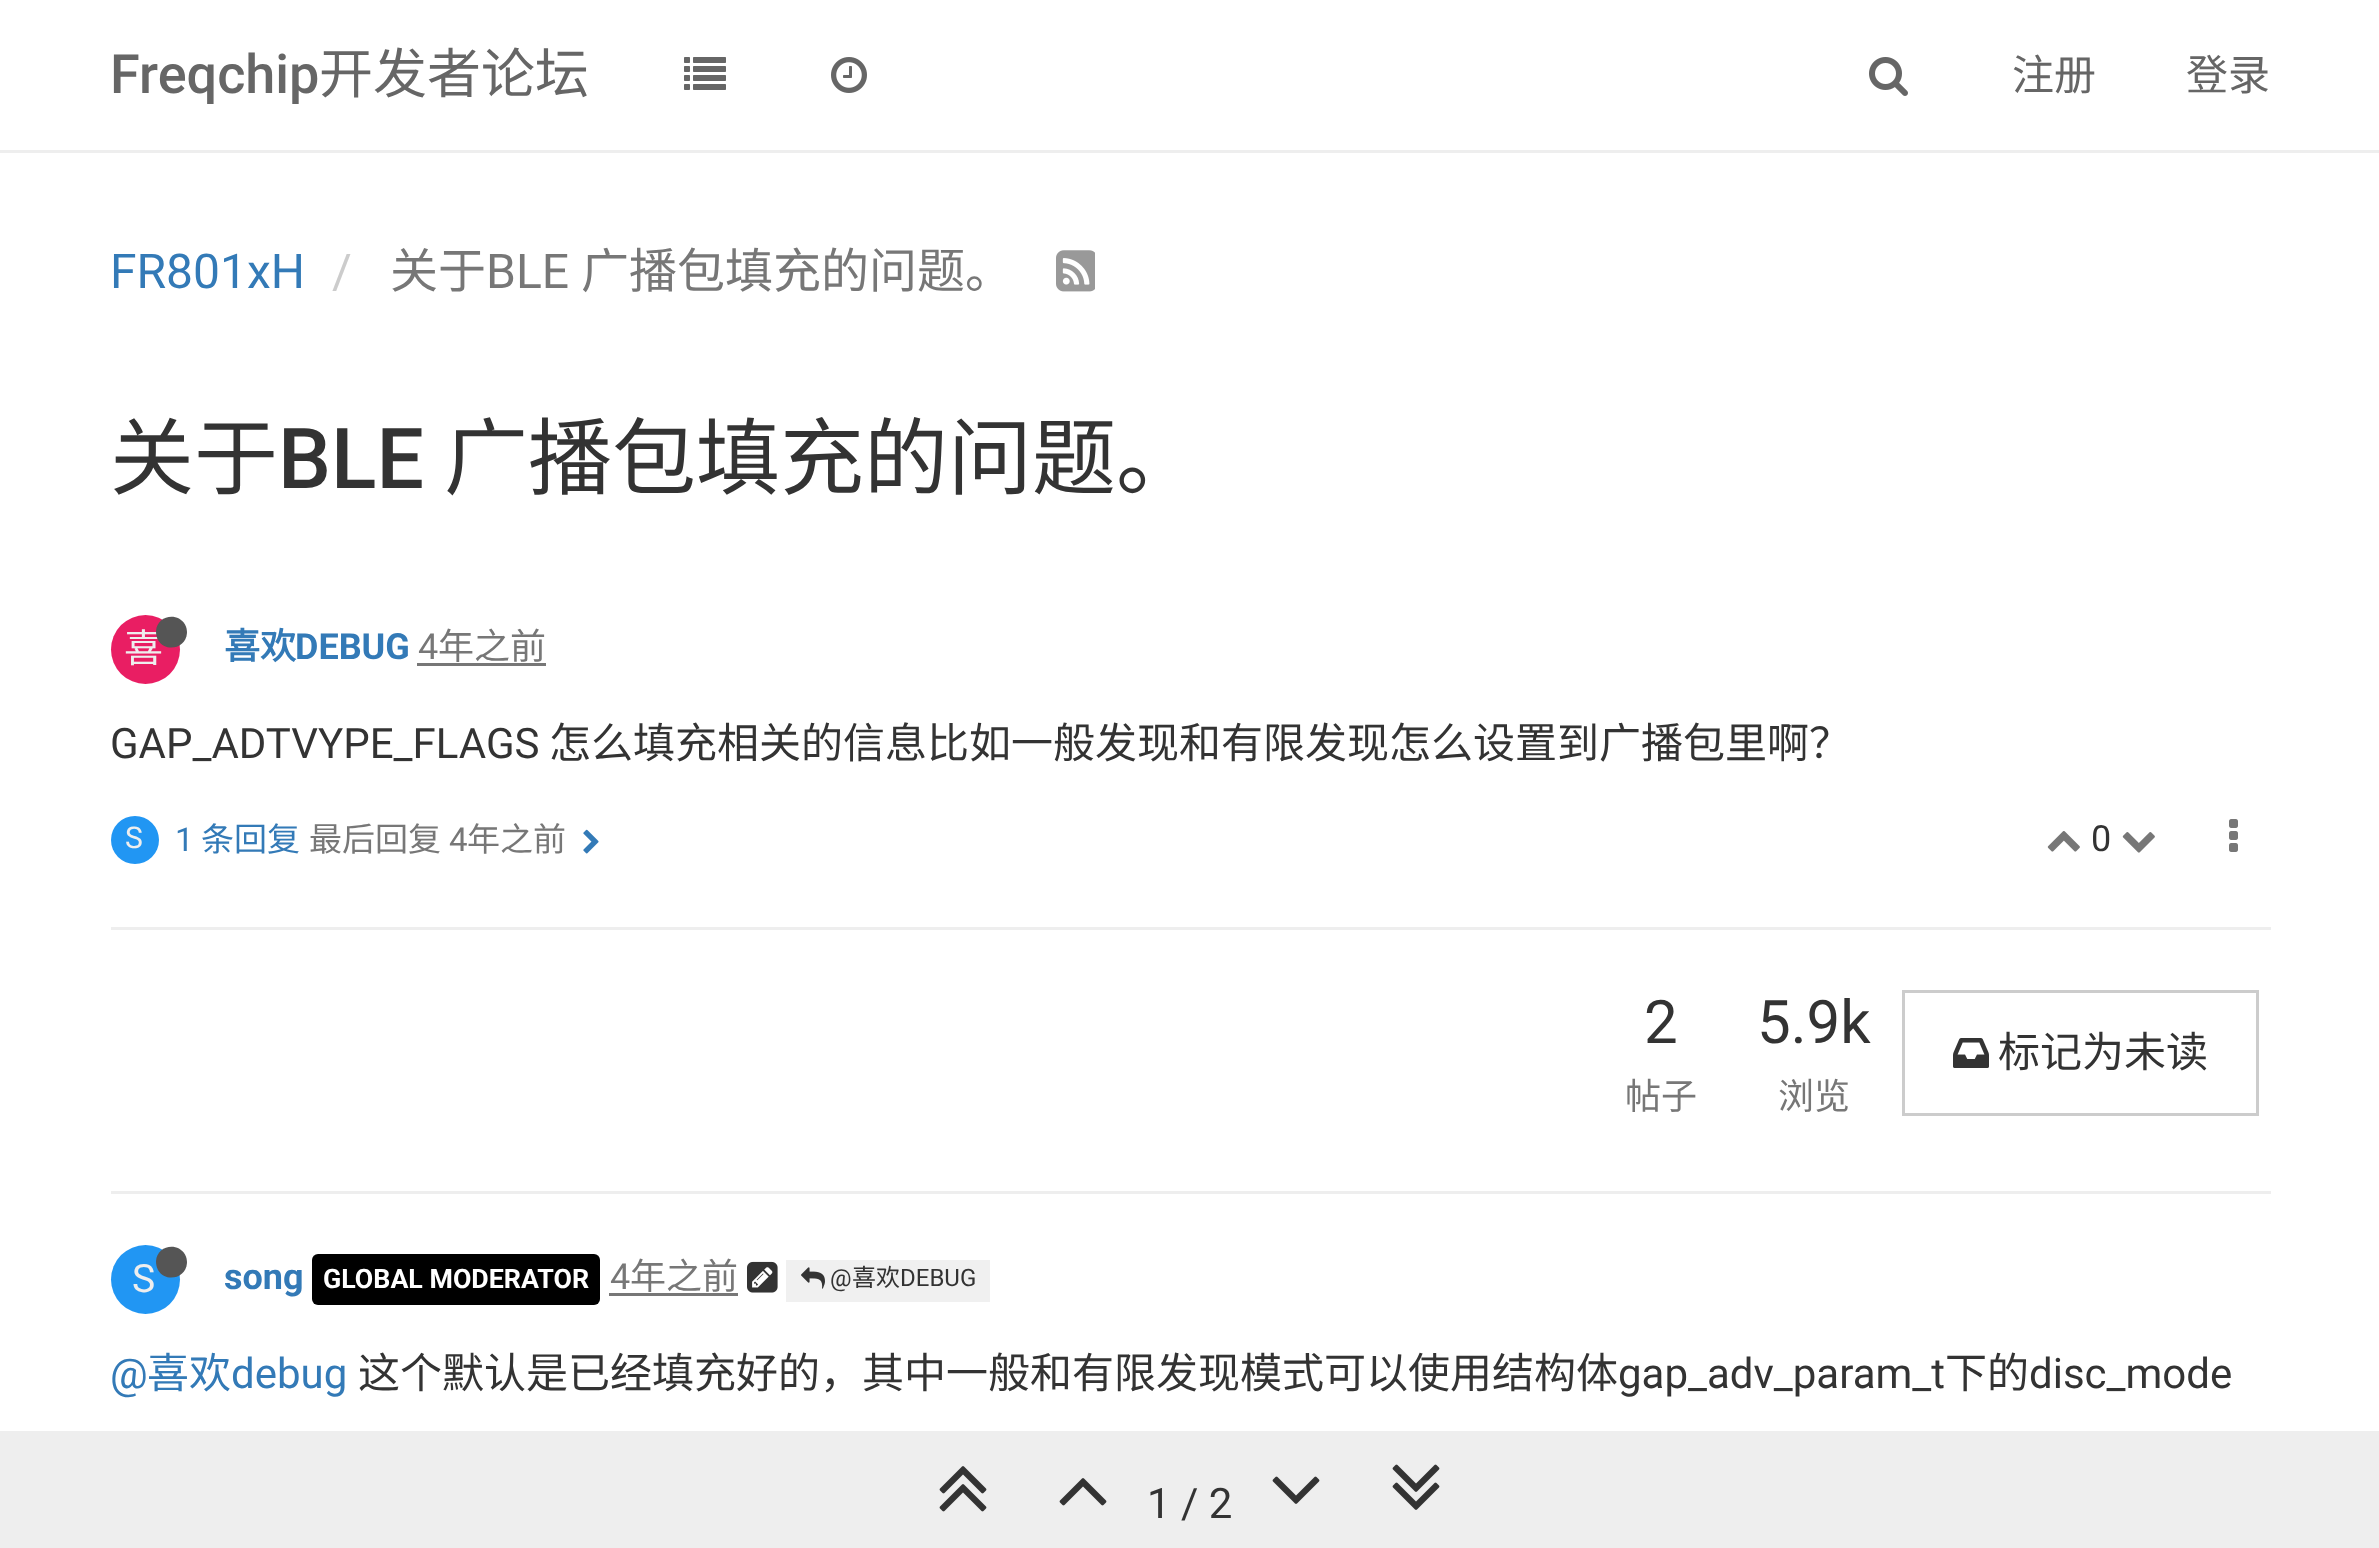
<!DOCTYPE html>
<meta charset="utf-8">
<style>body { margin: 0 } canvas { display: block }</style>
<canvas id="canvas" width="2379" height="1548"></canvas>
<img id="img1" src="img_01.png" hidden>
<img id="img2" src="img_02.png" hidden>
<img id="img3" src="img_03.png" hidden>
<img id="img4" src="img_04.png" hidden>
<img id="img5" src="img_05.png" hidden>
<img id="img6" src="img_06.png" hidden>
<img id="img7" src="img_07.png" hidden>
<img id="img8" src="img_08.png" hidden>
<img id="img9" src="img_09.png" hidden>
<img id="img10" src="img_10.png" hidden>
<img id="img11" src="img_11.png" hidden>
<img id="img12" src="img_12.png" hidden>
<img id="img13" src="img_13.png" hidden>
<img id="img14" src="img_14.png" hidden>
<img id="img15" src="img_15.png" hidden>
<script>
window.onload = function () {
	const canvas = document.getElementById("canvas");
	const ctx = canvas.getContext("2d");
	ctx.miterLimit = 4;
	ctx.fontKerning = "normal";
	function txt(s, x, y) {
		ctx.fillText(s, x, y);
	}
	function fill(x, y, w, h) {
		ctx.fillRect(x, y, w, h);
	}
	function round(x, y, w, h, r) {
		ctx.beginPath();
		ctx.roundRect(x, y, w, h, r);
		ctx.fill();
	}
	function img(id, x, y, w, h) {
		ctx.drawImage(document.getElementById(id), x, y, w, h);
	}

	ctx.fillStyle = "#FFFFFF";
	fill(0, 0, 2379, 1548);
	ctx.fillStyle = "#EEEEEE";
	fill(0, 150, 2379, 3);
	img("img1", 684, 57, 42, 33);
	img("img2", 831, 57, 36, 36);
	img("img3", 1869, 57, 39, 39);
	img("img4", 1056, 250, 39, 42);
	ctx.fillStyle = "#E91E63";
	ctx.beginPath();
	ctx.arc(145.5, 649.5, 34.5, 0, Math.PI * 2);
	ctx.fill();
	ctx.fillStyle = "#777777";
	fill(417, 663, 129, 3);
	ctx.fillStyle = "#2196F3";
	ctx.beginPath();
	ctx.arc(135, 840, 24, 0, Math.PI * 2);
	ctx.fill();
	img("img5", 583, 829, 16, 25);
	img("img6", 2047, 831, 33, 21);
	img("img7", 2122, 832, 33, 21);
	img("img8", 2229, 819, 9, 33);
	ctx.fillStyle = "#EEEEEE";
	fill(111, 927, 2160, 3);
	ctx.strokeStyle = "#CCCCCC";
	ctx.lineWidth = 3;
	ctx.strokeRect(1903.5, 991.5, 354, 123);
	img("img9", 1953, 1038, 36, 30);
	fill(111, 1191, 2160, 3);
	ctx.fillStyle = "#2196F3";
	ctx.beginPath();
	ctx.arc(145.5, 1279.5, 34.5, 0, Math.PI * 2);
	ctx.fill();
	ctx.fillStyle = "#555555";
	ctx.beginPath();
	ctx.moveTo(185, 1254.5);
	ctx.bezierCurveTo(186.5, 1257, 187, 1260, 187, 1263);
	ctx.bezierCurveTo(186, 1278.5, 165.5, 1283, 158, 1270);
	ctx.bezierCurveTo(156.5, 1267, 156, 1264, 156, 1261);
	ctx.bezierCurveTo(157, 1246, 177, 1241.5, 185, 1254.5);
	ctx.closePath();
	ctx.fill();
	ctx.fillStyle = "#000000";
	round(312, 1254, 288, 51, 6);
	ctx.fillStyle = "#777777";
	fill(609, 1293, 129, 3);
	img("img10", 747, 1261, 31, 32);
	ctx.fillStyle = "#F0F0F0";
	fill(786, 1260, 204, 42);
	img("img11", 801, 1267, 24, 22);
	ctx.fillStyle = "#EEEEEE";
	fill(0, 1431, 2379, 117);
	img("img12", 939, 1466, 48, 46);
	img("img13", 1059, 1478, 48, 28);
	img("img14", 1272, 1476, 48, 28);
	img("img15", 1392, 1464, 48, 46);
	ctx.font = "500 54px Roboto";
	ctx.fillStyle = "#666666";
	txt("Freqchip", 110, 93);
	ctx.font = "54px Noto Sans CJK SC";
	txt("开发者论坛", 319, 93);
	ctx.font = "42px Noto Sans CJK SC";
	txt("注册", 2012, 90);
	txt("登录", 2186, 90);
	ctx.font = "48px Roboto";
	ctx.fillStyle = "#337AB7";
	txt("FR801xH", 110, 288);
	ctx.fillStyle = "#CCCCCC";
	txt("/", 332, 288);
	ctx.font = "48px Noto Sans CJK SC";
	ctx.fillStyle = "#777777";
	txt("关于", 390, 288);
	ctx.font = "48px Roboto";
	txt("BLE", 486, 288);
	ctx.font = "48px Noto Sans CJK SC";
	txt("广播包填充的问题。", 581, 288);
	ctx.font = "84px Noto Sans CJK SC";
	ctx.fillStyle = "#333333";
	txt("关于", 110, 488);
	ctx.font = "500 84px Roboto";
	txt("BLE", 278, 488);
	ctx.font = "84px Noto Sans CJK SC";
	txt("广播包填充的问题。", 444, 488);
	ctx.font = "39px Noto Sans CJK SC";
	ctx.fillStyle = "#EEEEEE";
	txt("喜", 124, 662);
	ctx.fillStyle = "#555555";
	ctx.beginPath();
	ctx.moveTo(185, 624.5);
	ctx.bezierCurveTo(186.5, 627, 187, 630, 187, 633);
	ctx.bezierCurveTo(186, 648.5, 165.5, 653, 158, 640);
	ctx.bezierCurveTo(156.5, 637, 156, 634, 156, 631);
	ctx.bezierCurveTo(157, 616, 177, 611.5, 185, 624.5);
	ctx.closePath();
	ctx.fill();
	ctx.font = "bold 36px Noto Sans CJK SC";
	ctx.fillStyle = "#337AB7";
	txt("喜欢", 224, 659);
	ctx.font = "bold 36px Roboto";
	txt("DEBUG", 295, 659);
	ctx.font = "36px Roboto";
	ctx.fillStyle = "#777777";
	txt("4", 418, 659);
	ctx.font = "36px Noto Sans CJK SC";
	txt("年之前", 438, 659);
	ctx.font = "42px Roboto";
	ctx.fillStyle = "#333333";
	txt("GAP_ADTVYPE_FLAGS", 110, 758);
	ctx.font = "42px Noto Sans CJK SC";
	txt("怎么填充相关的信息比如一般发现和有限发现怎么设置到广播包里啊？", 549, 758);
	ctx.font = "30px Roboto";
	ctx.fillStyle = "#EEEEEE";
	txt("S", 125, 848);
	ctx.font = "33px Roboto";
	ctx.fillStyle = "#337AB7";
	txt("1", 175, 851);
	ctx.font = "33px Noto Sans CJK SC";
	txt("条回复", 201, 851);
	ctx.fillStyle = "#777777";
	txt("最后回复", 309, 851);
	ctx.font = "33px Roboto";
	txt("4", 449, 851);
	ctx.font = "33px Noto Sans CJK SC";
	txt("年之前", 467, 851);
	ctx.font = "36px Roboto";
	ctx.fillStyle = "#333333";
	txt("0", 2091, 851);
	ctx.font = "60px Roboto";
	txt("2", 1644, 1043);
	ctx.font = "36px Noto Sans CJK SC";
	ctx.fillStyle = "#777777";
	txt("帖子", 1625, 1109);
	ctx.font = "60px Roboto";
	ctx.fillStyle = "#333333";
	txt("5.9k", 1757, 1043);
	ctx.font = "36px Noto Sans CJK SC";
	ctx.fillStyle = "#777777";
	txt("浏览", 1778, 1109);
	ctx.font = "42px Noto Sans CJK SC";
	ctx.fillStyle = "#333333";
	txt("标记为未读", 1998, 1067);
	ctx.font = "39px Roboto";
	ctx.fillStyle = "#EEEEEE";
	txt("S", 132, 1292);
	ctx.font = "bold 36px Roboto";
	ctx.fillStyle = "#337AB7";
	txt("song", 224, 1289);
	ctx.font = "bold 26.75px Roboto";
	ctx.fillStyle = "#FFFFFF";
	txt("GLOBAL MODERATOR", 323, 1288);
	ctx.font = "36px Roboto";
	ctx.fillStyle = "#777777";
	txt("4", 610, 1289);
	ctx.font = "36px Noto Sans CJK SC";
	txt("年之前", 630, 1289);
	ctx.font = "24px Roboto";
	ctx.fillStyle = "#333333";
	txt("@", 830, 1286);
	ctx.font = "24px Noto Sans CJK SC";
	txt("喜欢", 852, 1286);
	ctx.font = "24px Roboto";
	txt("DEBUG", 900, 1286);
	ctx.font = "42px Roboto";
	ctx.fillStyle = "#337AB7";
	txt("@", 110, 1388);
	ctx.font = "42px Noto Sans CJK SC";
	txt("喜欢", 147, 1388);
	ctx.font = "42px Roboto";
	txt("debug", 231, 1388);
	ctx.font = "42px Noto Sans CJK SC";
	ctx.fillStyle = "#333333";
	txt("这个默认是已经填充好的，其中一般和有限发现模式可以使用结构体", 358, 1388);
	ctx.font = "42px Roboto";
	txt("gap_adv_param_t", 1618, 1388);
	ctx.font = "42px Noto Sans CJK SC";
	txt("下的", 1945, 1388);
	ctx.font = "42px Roboto";
	txt("disc_mode", 2029, 1388);
	txt("1 / 2", 1147, 1518);
};
</script>
